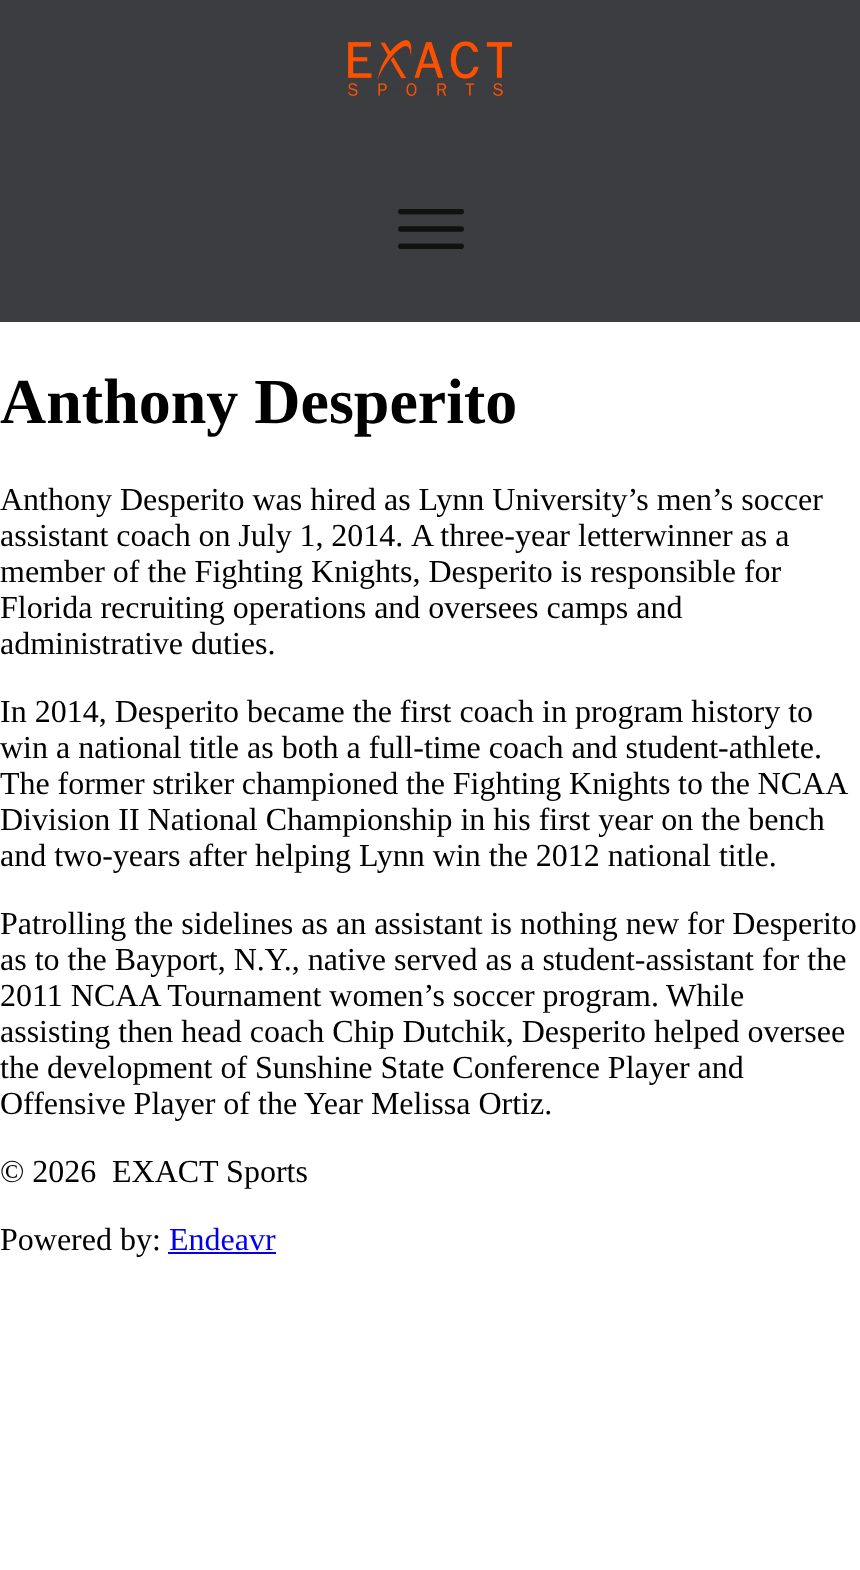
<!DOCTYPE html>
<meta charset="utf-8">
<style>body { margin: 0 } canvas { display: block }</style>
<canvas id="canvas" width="860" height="1570"></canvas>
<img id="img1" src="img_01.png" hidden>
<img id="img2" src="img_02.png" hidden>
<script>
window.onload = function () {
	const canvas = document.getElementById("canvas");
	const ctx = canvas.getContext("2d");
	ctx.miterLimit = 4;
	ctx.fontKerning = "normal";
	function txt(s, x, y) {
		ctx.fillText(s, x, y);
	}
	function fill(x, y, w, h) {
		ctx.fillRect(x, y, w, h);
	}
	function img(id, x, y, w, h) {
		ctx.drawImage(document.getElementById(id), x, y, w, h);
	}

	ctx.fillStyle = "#FFFFFF";
	fill(0, 0, 860, 1570);
	ctx.fillStyle = "#3C3D41";
	fill(0, 0, 860, 322);
	img("img1", 348, 40, 164, 56);
	img("img2", 398, 209, 66, 40);
	ctx.fillStyle = "#0000EE";
	fill(168, 1252, 108, 2);
	ctx.font = "bold 64px Liberation Serif";
	ctx.fillStyle = "#000000";
	txt("Anthony Desperito", 0, 423);
	ctx.font = "32px Liberation Serif";
	txt("Anthony Desperito was hired as Lynn University’s men’s soccer", 0, 510);
	ctx.wordSpacing = "-0.25px";
	txt("assistant coach on July 1, 2014.", 0, 546);
	ctx.wordSpacing = "0px";
	txt("A three-year letterwinner as a", 411, 546);
	txt("member of the Fighting Knights, Desperito is responsible for", 0, 582);
	txt("Florida recruiting operations and oversees camps and", 0, 618);
	txt("administrative duties.", 0, 654);
	txt("In 2014, Desperito became the first coach in program history to", 0, 722);
	txt("win a national title as both a full-time coach and student-athlete.", 0, 758);
	ctx.wordSpacing = "-0.25px";
	txt("The former striker championed the Fighting Knights to the NCAA", 0, 794);
	ctx.wordSpacing = "0px";
	txt("Division II National Championship in his first year on the bench", 0, 830);
	txt("and two-years after helping Lynn win the 2012 national title.", 0, 866);
	txt("Patrolling the sidelines as an assistant is nothing new for Desperito", 0, 934);
	txt("as to the Bayport, N.Y., native served as a student-assistant for the", 0, 970);
	txt("2011 NCAA Tournament women’s soccer program.", 0, 1006);
	txt("While", 666, 1006);
	txt("assisting then head coach Chip Dutchik, Desperito helped oversee", 0, 1042);
	txt("the development of Sunshine State Conference Player and", 0, 1078);
	txt("Offensive Player of the Year Melissa Ortiz.", 0, 1114);
	txt("© 2026", 0, 1182);
	txt("EXACT Sports", 112, 1182);
	txt("Powered by:", 0, 1250);
	ctx.fillStyle = "#0000EE";
	txt("Endeavr", 169, 1250);
};
</script>
